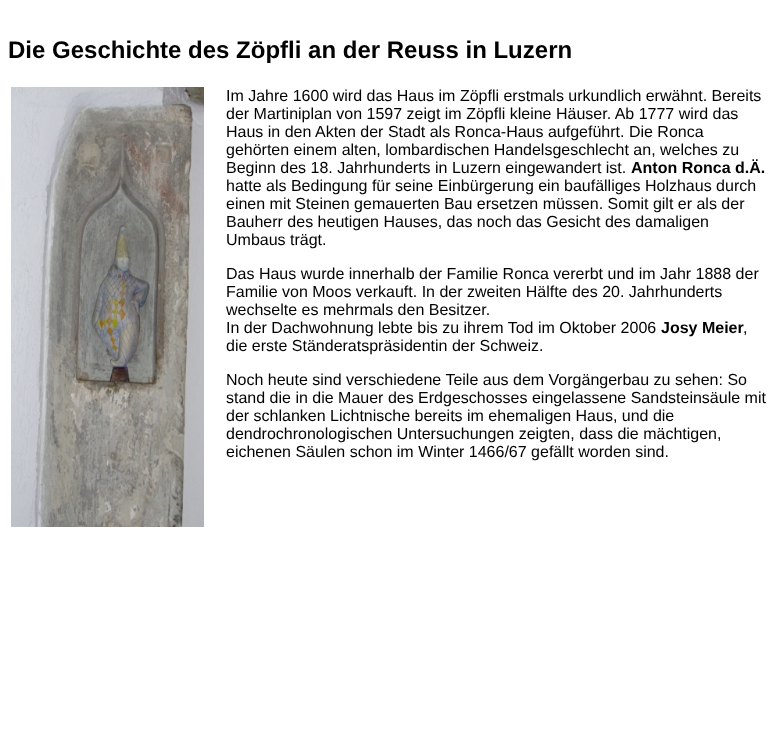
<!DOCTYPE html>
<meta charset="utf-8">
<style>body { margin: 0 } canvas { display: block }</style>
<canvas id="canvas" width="769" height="734"></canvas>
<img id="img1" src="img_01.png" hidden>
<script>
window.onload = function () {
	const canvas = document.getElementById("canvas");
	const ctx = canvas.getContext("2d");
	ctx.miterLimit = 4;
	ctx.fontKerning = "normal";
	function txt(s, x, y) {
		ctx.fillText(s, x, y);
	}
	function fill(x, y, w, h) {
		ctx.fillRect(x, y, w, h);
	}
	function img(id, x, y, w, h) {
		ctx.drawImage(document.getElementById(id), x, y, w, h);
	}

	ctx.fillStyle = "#FFFFFF";
	fill(0, 0, 769, 734);
	img("img1", 11, 87, 193, 440);
	ctx.font = "bold 24px Liberation Sans";
	ctx.fillStyle = "#000000";
	txt("Die Geschichte des Zöpfli an der Reuss in Luzern", 8, 58);
	ctx.font = "16px Liberation Sans";
	txt("Im Jahre 1600 wird das Haus im Zöpfli erstmals urkundlich erwähnt. Bereits", 226, 101);
	txt("der Martiniplan von 1597 zeigt im Zöpfli kleine Häuser. Ab 1777 wird das", 226, 119);
	txt("Haus in den Akten der Stadt als Ronca-Haus aufgeführt. Die Ronca", 226, 137);
	txt("gehörten einem alten, lombardischen Handelsgeschlecht an, welches zu", 226, 155);
	txt("Beginn des 18. Jahrhunderts in Luzern eingewandert ist.", 226, 173);
	ctx.font = "bold 16px Liberation Sans";
	txt("Anton Ronca d.Ä.", 631, 173);
	ctx.font = "16px Liberation Sans";
	txt("hatte als Bedingung für seine Einbürgerung ein baufälliges Holzhaus durch", 226, 191);
	txt("einen mit Steinen gemauerten Bau ersetzen müssen. Somit gilt er als der", 226, 209);
	txt("Bauherr des heutigen Hauses, das noch das Gesicht des damaligen", 226, 227);
	txt("Umbaus trägt.", 226, 245);
	txt("Das Haus wurde innerhalb der Familie Ronca vererbt und im Jahr 1888 der", 226, 279);
	txt("Familie von Moos verkauft. In der zweiten Hälfte des 20. Jahrhunderts", 226, 297);
	txt("wechselte es mehrmals den Besitzer.", 226, 315);
	txt("In der Dachwohnung lebte bis zu ihrem Tod im Oktober 2006", 226, 333);
	ctx.font = "bold 16px Liberation Sans";
	txt("Josy Meier", 661, 333);
	ctx.font = "16px Liberation Sans";
	txt(",", 743, 333);
	txt("die erste Ständeratspräsidentin der Schweiz.", 226, 351);
	txt("Noch heute sind verschiedene Teile aus dem Vorgängerbau zu sehen: So", 226, 385);
	txt("stand die in die Mauer des Erdgeschosses eingelassene Sandsteinsäule mit", 226, 403);
	txt("der schlanken Lichtnische bereits im ehemaligen Haus, und die", 226, 421);
	txt("dendrochronologischen Untersuchungen zeigten, dass die mächtigen,", 226, 439);
	txt("eichenen Säulen schon im Winter 1466/67 gefällt worden sind.", 226, 457);
};
</script>
